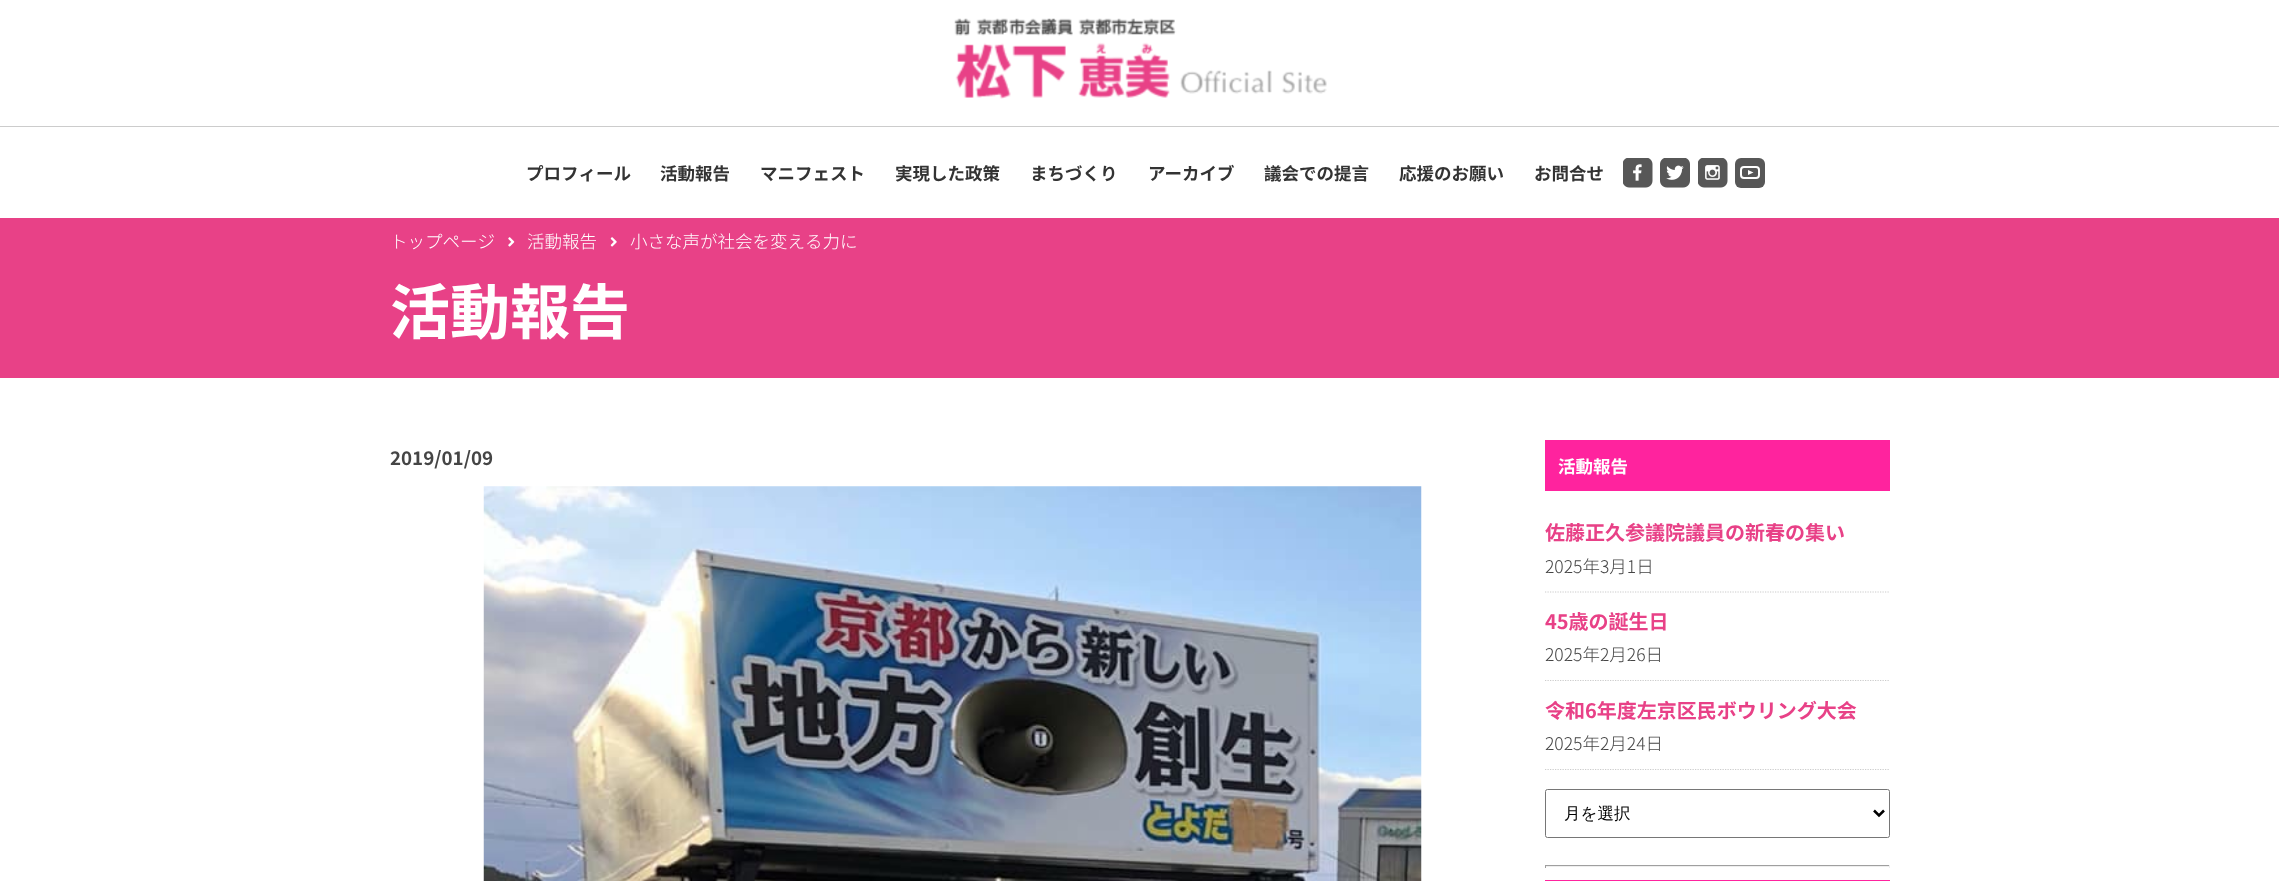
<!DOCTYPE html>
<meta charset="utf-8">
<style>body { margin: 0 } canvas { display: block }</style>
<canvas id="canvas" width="2279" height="881"></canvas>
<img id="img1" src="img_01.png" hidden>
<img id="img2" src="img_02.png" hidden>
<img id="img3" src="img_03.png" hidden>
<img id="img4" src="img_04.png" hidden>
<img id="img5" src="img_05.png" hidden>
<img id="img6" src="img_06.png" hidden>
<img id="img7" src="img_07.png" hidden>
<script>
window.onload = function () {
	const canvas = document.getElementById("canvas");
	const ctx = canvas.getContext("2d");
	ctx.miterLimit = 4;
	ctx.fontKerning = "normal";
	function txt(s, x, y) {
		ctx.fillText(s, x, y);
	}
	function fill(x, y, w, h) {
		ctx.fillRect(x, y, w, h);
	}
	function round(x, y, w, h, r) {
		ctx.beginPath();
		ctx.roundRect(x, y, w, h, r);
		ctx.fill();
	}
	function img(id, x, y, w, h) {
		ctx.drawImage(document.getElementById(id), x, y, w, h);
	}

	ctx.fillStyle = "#FFFFFF";
	fill(0, 0, 2279, 881);
	ctx.fillStyle = "#CCCCCC";
	fill(0, 126, 2279, 1);
	img("img1", 954, 18, 373, 81);
	img("img2", 1623, 158, 30, 30);
	img("img3", 1660, 158, 30, 30);
	img("img4", 1698, 158, 30, 30);
	ctx.fillStyle = "#575757";
	round(1735, 158, 30, 30, 6);
	ctx.fillStyle = "#FFFFFF";
	ctx.beginPath();
	ctx.moveTo(1753.5, 172.5);
	ctx.lineTo(1748, 175);
	ctx.lineTo(1748, 170);
	ctx.closePath();
	ctx.fill();
	ctx.beginPath();
	ctx.roundRect(1741, 167, 18, 11, 3);
	ctx.strokeStyle = "#FFFFFF";
	ctx.lineWidth = 2;
	ctx.stroke();
	ctx.fillStyle = "#E84187";
	fill(0, 218, 2279, 160);
	img("img5", 508, 237, 7, 10);
	img("img6", 610, 237, 7, 10);
	img("img7", 483, 486, 939, 395);
	ctx.fillStyle = "#FF239E";
	fill(1545, 440, 345, 51);
	ctx.beginPath();
	ctx.moveTo(1545, 592);
	ctx.lineTo(1890, 592);
	ctx.strokeStyle = "#CCCCCC";
	ctx.lineWidth = 1.2;
	ctx.setLineDash([1.25, 1.25]);
	ctx.stroke();
	ctx.beginPath();
	ctx.moveTo(1545, 680.5);
	ctx.lineTo(1890, 680.5);
	ctx.stroke();
	ctx.beginPath();
	ctx.moveTo(1545, 769.5);
	ctx.lineTo(1890, 769.5);
	ctx.stroke();
	ctx.beginPath();
	ctx.roundRect(1545.5, 789.5, 344, 48, 2);
	ctx.strokeStyle = "#767676";
	ctx.lineWidth = 1;
	ctx.setLineDash([]);
	ctx.stroke();
	ctx.beginPath();
	ctx.moveTo(1874, 810.5);
	ctx.lineTo(1879, 815.5);
	ctx.lineTo(1884, 810.5);
	ctx.strokeStyle = "#000000";
	ctx.lineWidth = 2.5;
	ctx.stroke();
	ctx.fillStyle = "#9F9F9F";
	fill(1545, 865, 345, 1);
	ctx.fillStyle = "#EEEEEE";
	fill(1889, 865, 1, 3);
	fill(1545, 866, 345, 1);
	ctx.fillStyle = "#9F9F9F";
	fill(1545, 865, 1, 3);
	ctx.fillStyle = "#FF239E";
	fill(1545, 880, 345, 1);
	ctx.font = "bold 17.5px Noto Sans SC";
	ctx.fillStyle = "#333333";
	txt("プロフィール", 526, 180);
	txt("活動報告", 660, 180);
	txt("マニフェスト", 760, 180);
	txt("実現した政策", 895, 180);
	txt("まちづくり", 1030, 180);
	txt("アーカイブ", 1148, 180);
	txt("議会での提言", 1264, 180);
	txt("応援のお願い", 1399, 180);
	txt("お問合せ", 1534, 180);
	ctx.font = "300 17.5px Noto Sans SC";
	ctx.fillStyle = "#FFFFFF";
	txt("トップページ", 390, 248);
	txt("活動報告", 527, 248);
	txt("小さな声が社会を変える力に", 630, 248);
	ctx.font = "bold 60px Noto Sans SC";
	txt("活動報告", 390, 334);
	ctx.font = "bold 18.75px Noto Sans SC";
	ctx.fillStyle = "#454545";
	txt("2019/01/09", 390, 465);
	ctx.font = "bold 17.5px Noto Sans SC";
	ctx.fillStyle = "#FFFFFF";
	txt("活動報告", 1558, 473);
	ctx.font = "bold 20px Noto Sans SC";
	ctx.fillStyle = "#E84187";
	txt("佐藤正久参議院議員の新春の集い", 1545, 540);
	ctx.font = "300 17.5px Noto Sans SC";
	ctx.fillStyle = "#454545";
	txt("2025年3月1日", 1545, 573);
	ctx.font = "bold 20px Noto Sans SC";
	ctx.fillStyle = "#E84187";
	txt("45歳の誕生日", 1545, 629);
	ctx.font = "300 17.5px Noto Sans SC";
	ctx.fillStyle = "#454545";
	txt("2025年2月26日", 1545, 661);
	ctx.font = "bold 20px Noto Sans SC";
	ctx.fillStyle = "#E84187";
	txt("令和6年度左京区民ボウリング大会", 1545, 718);
	ctx.font = "300 17.5px Noto Sans SC";
	ctx.fillStyle = "#454545";
	txt("2025年2月24日", 1545, 750);
	ctx.font = "500 16.5px WenQuanYi Zen Hei";
	ctx.fillStyle = "#000000";
	txt("月を選択", 1564, 819);
};
</script>
